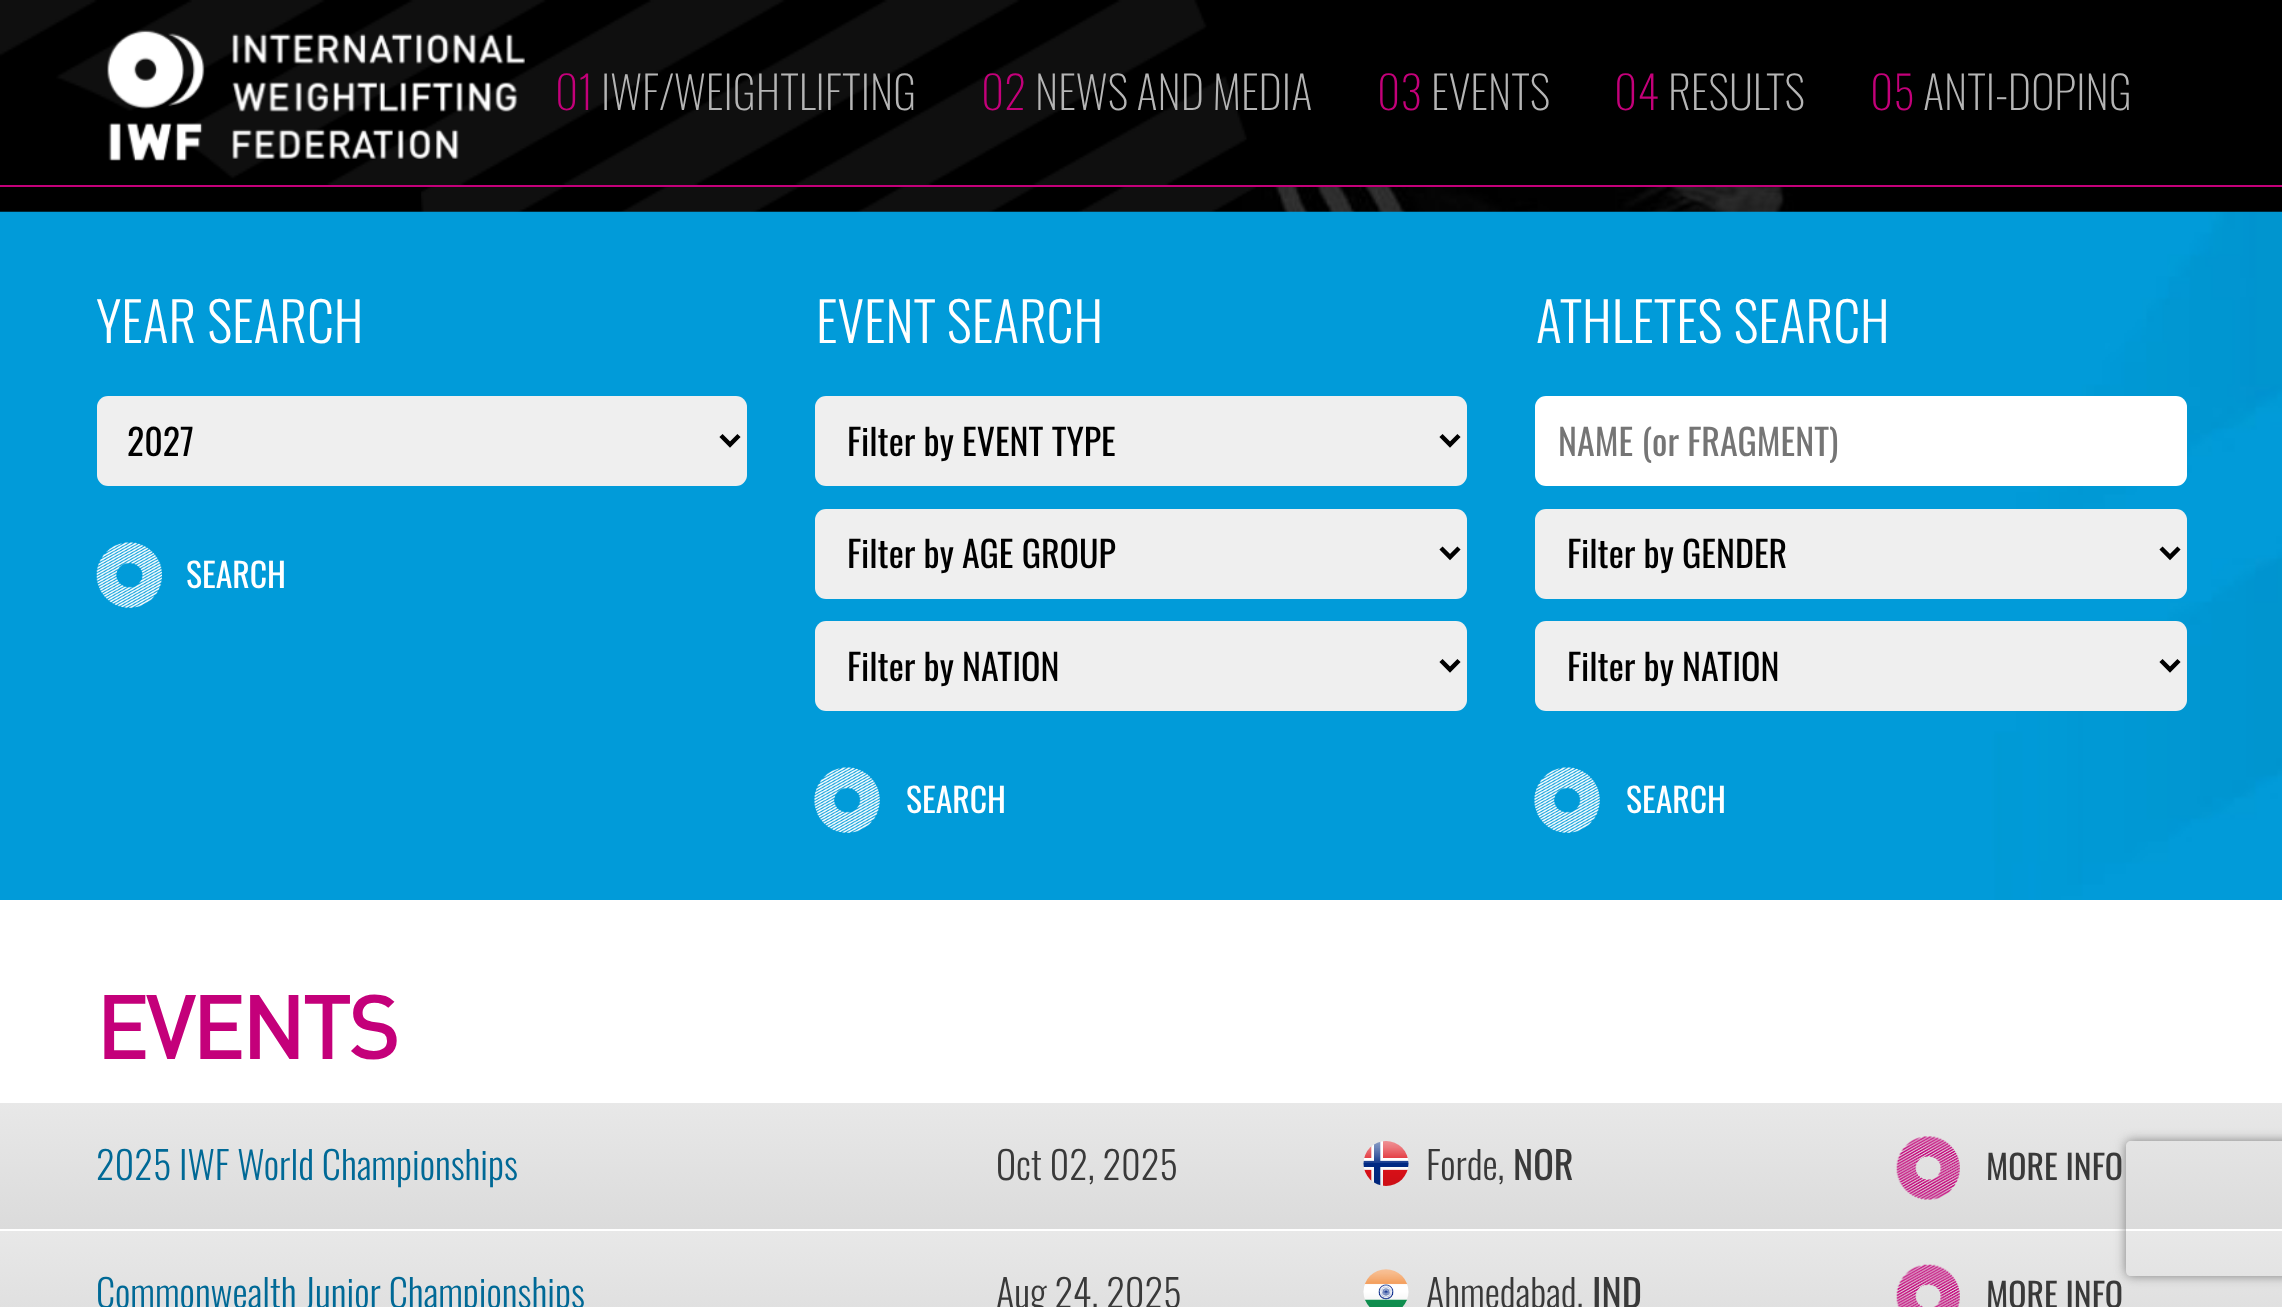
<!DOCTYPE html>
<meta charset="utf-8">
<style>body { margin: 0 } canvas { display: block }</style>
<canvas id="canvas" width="2282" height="1307"></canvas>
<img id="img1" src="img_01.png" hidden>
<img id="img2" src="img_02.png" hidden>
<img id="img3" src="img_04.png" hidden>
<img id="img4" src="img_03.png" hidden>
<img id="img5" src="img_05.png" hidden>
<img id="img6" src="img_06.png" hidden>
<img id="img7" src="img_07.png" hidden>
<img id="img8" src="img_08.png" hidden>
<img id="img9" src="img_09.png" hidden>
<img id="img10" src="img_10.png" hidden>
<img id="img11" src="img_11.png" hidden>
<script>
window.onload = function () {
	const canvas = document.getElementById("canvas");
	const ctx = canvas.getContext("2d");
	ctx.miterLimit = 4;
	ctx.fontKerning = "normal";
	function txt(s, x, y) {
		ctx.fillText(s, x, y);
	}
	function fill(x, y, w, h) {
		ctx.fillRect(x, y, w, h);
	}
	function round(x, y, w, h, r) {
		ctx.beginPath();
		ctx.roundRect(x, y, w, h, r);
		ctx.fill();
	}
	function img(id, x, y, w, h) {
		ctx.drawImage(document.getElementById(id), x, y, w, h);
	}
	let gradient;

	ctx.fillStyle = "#000000";
	fill(0, 0, 2282, 1307);
	ctx.fillStyle = "#C4007A";
	fill(0, 185, 2282, 2);
	img("img1", 0, 0, 1247, 185);
	img("img2", 107, 30, 418, 131);
	img("img3", 1242, 187, 862, 25);
	img("img4", 421, 187, 835, 25);
	img("img5", 0, 211, 2282, 689);
	ctx.fillStyle = "#EFEFEF";
	round(97, 396, 650, 90, 11);
	ctx.beginPath();
	ctx.moveTo(721, 435.5);
	ctx.lineTo(730, 444.5);
	ctx.lineTo(739, 435.5);
	ctx.strokeStyle = "#000000";
	ctx.lineWidth = 4.5;
	ctx.stroke();
	img("img6", 96, 542, 66, 66);
	round(815, 396, 652, 90, 11);
	ctx.beginPath();
	ctx.moveTo(1441, 435.5);
	ctx.lineTo(1450, 444.5);
	ctx.lineTo(1459, 435.5);
	ctx.stroke();
	round(815, 509, 652, 90, 11);
	ctx.beginPath();
	ctx.moveTo(1441, 548);
	ctx.lineTo(1450, 557);
	ctx.lineTo(1459, 548);
	ctx.stroke();
	round(815, 621, 652, 90, 11);
	ctx.beginPath();
	ctx.moveTo(1441, 660.5);
	ctx.lineTo(1450, 669.5);
	ctx.lineTo(1459, 660.5);
	ctx.stroke();
	img("img7", 814, 767, 66, 66);
	ctx.fillStyle = "#FFFFFF";
	round(1535, 396, 652, 90, 11);
	ctx.fillStyle = "#EFEFEF";
	round(1535, 509, 652, 90, 11);
	ctx.beginPath();
	ctx.moveTo(2161, 548);
	ctx.lineTo(2170, 557);
	ctx.lineTo(2179, 548);
	ctx.stroke();
	round(1535, 621, 652, 90, 11);
	ctx.beginPath();
	ctx.moveTo(2161, 660.5);
	ctx.lineTo(2170, 669.5);
	ctx.lineTo(2179, 660.5);
	ctx.stroke();
	img("img7", 1534, 767, 66, 66);
	ctx.fillStyle = "#FFFFFF";
	fill(0, 900, 2282, 203);
	gradient = ctx.createLinearGradient(1142, 1102, 1142, 1229);
	gradient.addColorStop(0, "#E8E8E8");
	gradient.addColorStop(1, "#DBDBDB");
	ctx.fillStyle = gradient;
	fill(0, 1103, 2282, 126);
	ctx.fillStyle = "#FFFFFF";
	fill(0, 1229, 2282, 2);
	img("img8", 1363, 1141, 46, 45);
	img("img9", 1896, 1136, 64, 64);
	gradient = ctx.createLinearGradient(1142, 1231, 1142, 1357);
	gradient.addColorStop(0, "#E8E8E8");
	gradient.addColorStop(1, "#DBDBDB");
	ctx.fillStyle = gradient;
	fill(0, 1231, 2282, 76);
	img("img10", 1363, 1269, 46, 38);
	img("img11", 1896, 1264, 64, 43);
	ctx.save();
	ctx.beginPath();
	ctx.moveTo(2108, 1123);
	ctx.lineTo(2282, 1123);
	ctx.lineTo(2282, 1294);
	ctx.lineTo(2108, 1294);
	ctx.closePath();
	ctx.moveTo(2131, 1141);
	ctx.lineTo(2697, 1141);
	ctx.bezierCurveTo(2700, 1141, 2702, 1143, 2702, 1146);
	ctx.lineTo(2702, 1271);
	ctx.bezierCurveTo(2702, 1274, 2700, 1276, 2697, 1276);
	ctx.lineTo(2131, 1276);
	ctx.bezierCurveTo(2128, 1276, 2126, 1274, 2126, 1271);
	ctx.lineTo(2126, 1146);
	ctx.bezierCurveTo(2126, 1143, 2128, 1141, 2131, 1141);
	ctx.closePath();
	ctx.clip("evenodd");
	ctx.fillStyle = "#808080";
	ctx.filter = "blur(5.5px)";
	ctx.beginPath();
	ctx.roundRect(2126, 1141, 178, 135, 5);
	ctx.fill();
	ctx.filter = "none";
	ctx.restore();
	ctx.font = "200 45px Oswald";
	ctx.fillStyle = "#C4007A";
	txt("01", 555, 110);
	ctx.fillStyle = "#B5B5B5";
	txt("IWF/WEIGHTLIFTING", 601, 110);
	ctx.fillStyle = "#C4007A";
	txt("02", 981, 110);
	ctx.fillStyle = "#B5B5B5";
	txt("NEWS AND MEDIA", 1035, 110);
	ctx.fillStyle = "#C4007A";
	txt("03", 1377, 110);
	ctx.fillStyle = "#B5B5B5";
	txt("EVENTS", 1431, 110);
	ctx.fillStyle = "#C4007A";
	txt("04", 1614, 110);
	ctx.fillStyle = "#B5B5B5";
	txt("RESULTS", 1668, 110);
	ctx.fillStyle = "#C4007A";
	txt("05", 1870, 110);
	ctx.fillStyle = "#B5B5B5";
	txt("ANTI-DOPING", 1923, 110);
	ctx.font = "300 54px Oswald";
	ctx.fillStyle = "#FFFFFF";
	txt("YEAR SEARCH", 96, 343);
	ctx.font = "36px Oswald";
	ctx.fillStyle = "#000000";
	txt("2027", 127, 456);
	ctx.font = "33.75px Oswald";
	ctx.fillStyle = "#FFFFFF";
	txt("SEARCH", 186, 588);
	ctx.font = "300 54px Oswald";
	txt("EVENT SEARCH", 816, 343);
	ctx.font = "36px Oswald";
	ctx.fillStyle = "#000000";
	txt("Filter by EVENT TYPE", 847, 456);
	txt("Filter by AGE GROUP", 847, 568);
	txt("Filter by NATION", 847, 681);
	ctx.font = "33.75px Oswald";
	ctx.fillStyle = "#FFFFFF";
	txt("SEARCH", 906, 813);
	ctx.font = "300 54px Oswald";
	txt("ATHLETES SEARCH", 1536, 343);
	ctx.font = "36px Oswald";
	ctx.fillStyle = "#757575";
	txt("NAME (or FRAGMENT)", 1558, 456);
	ctx.fillStyle = "#000000";
	txt("Filter by GENDER", 1567, 568);
	txt("Filter by NATION", 1567, 681);
	ctx.font = "33.75px Oswald";
	ctx.fillStyle = "#FFFFFF";
	txt("SEARCH", 1626, 813);
	ctx.letterSpacing = "-4.5px";
	ctx.font = "90px DIN";
	ctx.fillStyle = "#C4007A";
	txt("EVENTS", 96, 1059);
	ctx.letterSpacing = "0px";
	ctx.font = "300 38.25px Oswald";
	ctx.fillStyle = "#006996";
	txt("2025 IWF World Championships", 96, 1180);
	ctx.fillStyle = "#393939";
	txt("Oct 02, 2025", 996, 1180);
	txt("Forde,", 1426, 1180);
	ctx.font = "38.25px Oswald";
	txt("NOR", 1513, 1180);
	ctx.font = "33.75px Oswald";
	txt("MORE INFO", 1986, 1180);
	ctx.font = "300 38.25px Oswald";
	ctx.fillStyle = "#006996";
	txt("Commonwealth Junior Championships", 96, 1308);
	ctx.fillStyle = "#393939";
	txt("Aug 24, 2025", 996, 1308);
	txt("Ahmedabad,", 1426, 1308);
	ctx.font = "38.25px Oswald";
	txt("IND", 1592, 1308);
	ctx.font = "33.75px Oswald";
	txt("MORE INFO", 1986, 1308);
};
</script>
